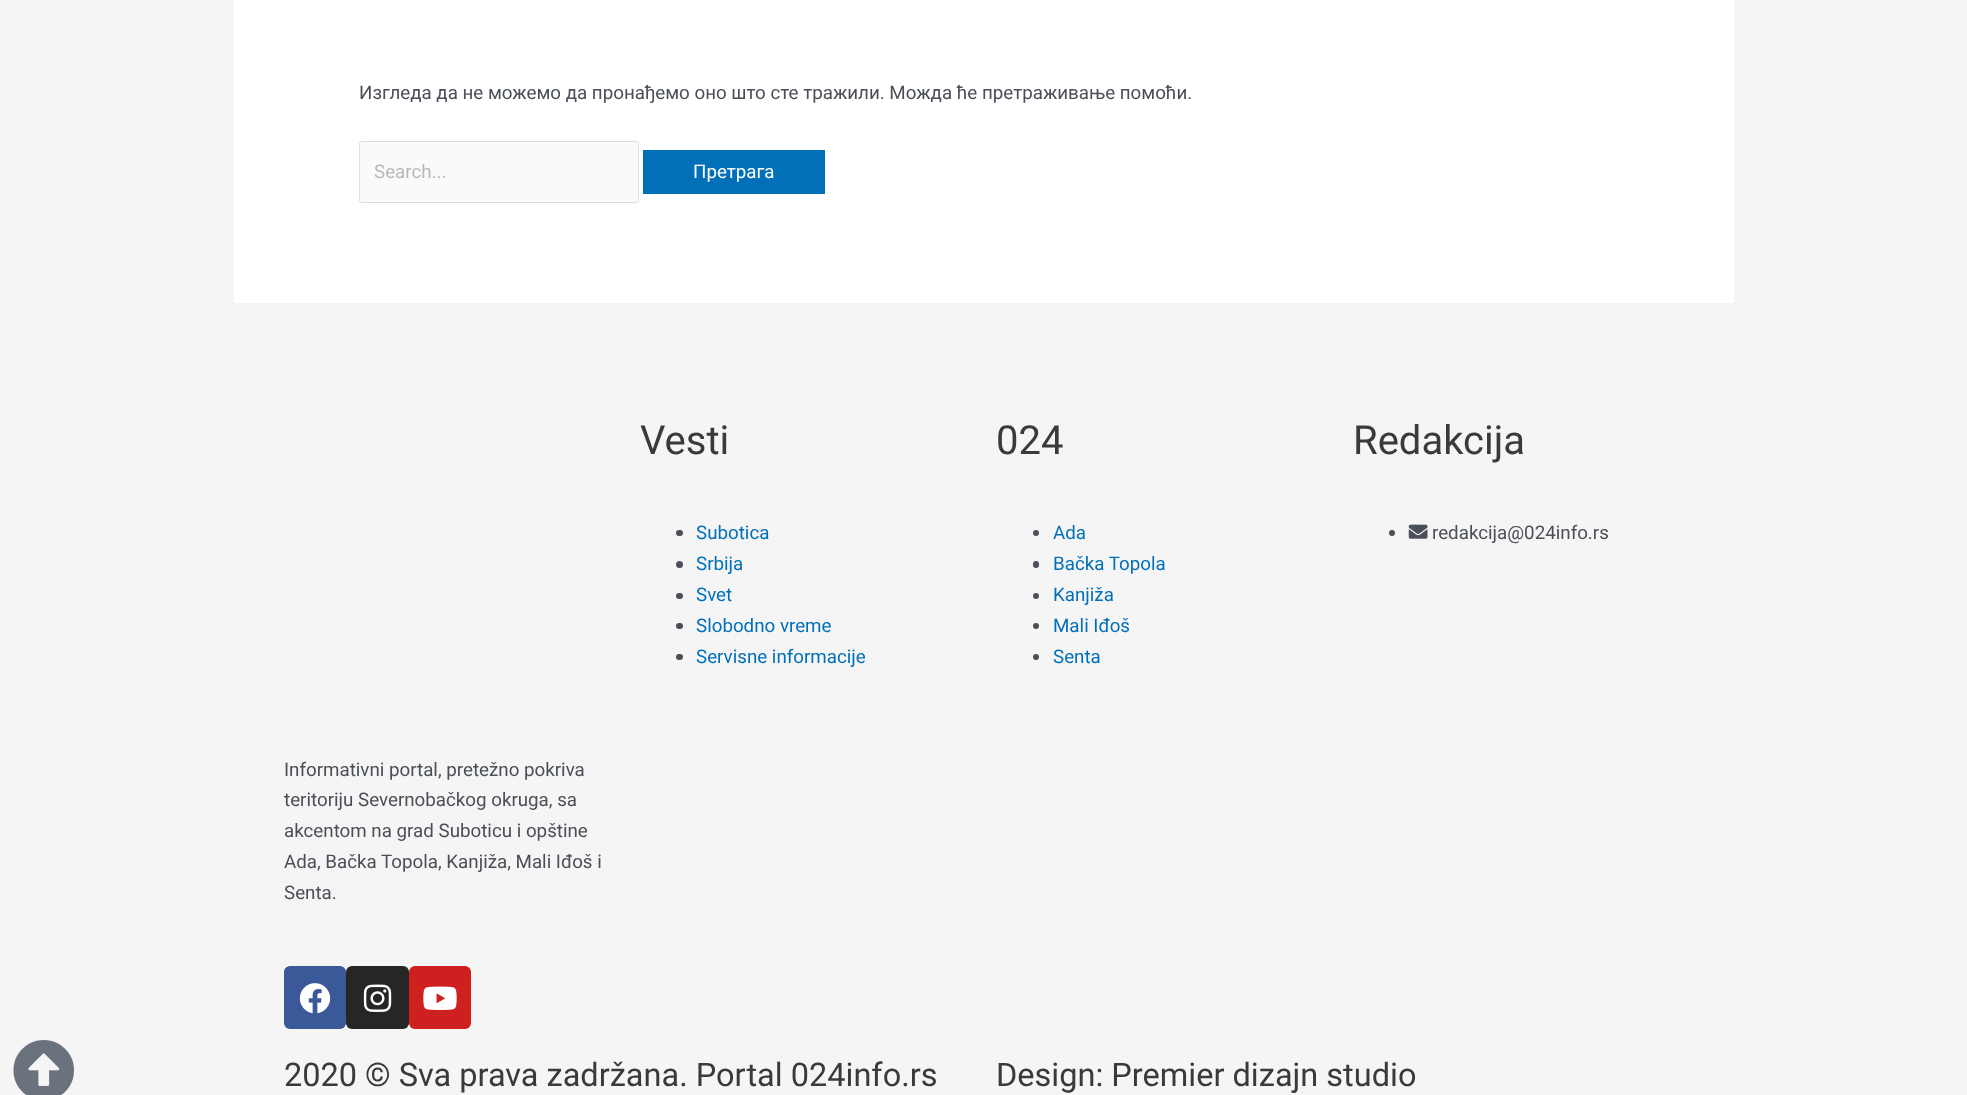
<!DOCTYPE html>
<meta charset="utf-8">
<style>body { margin: 0 } canvas { display: block }</style>
<canvas id="canvas" width="1967" height="1095"></canvas>
<img id="img1" src="img_01.png" hidden>
<img id="img2" src="img_02.png" hidden>
<img id="img3" src="img_03.png" hidden>
<img id="img4" src="img_04.png" hidden>
<img id="img5" src="img_05.png" hidden>
<script>
window.onload = function () {
	const canvas = document.getElementById("canvas");
	const ctx = canvas.getContext("2d");
	ctx.miterLimit = 4;
	ctx.fontKerning = "normal";
	function txt(s, x, y) {
		ctx.fillText(s, x, y);
	}
	function fill(x, y, w, h) {
		ctx.fillRect(x, y, w, h);
	}
	function round(x, y, w, h, r) {
		ctx.beginPath();
		ctx.roundRect(x, y, w, h, r);
		ctx.fill();
	}
	function img(id, x, y, w, h) {
		ctx.drawImage(document.getElementById(id), x, y, w, h);
	}

	ctx.fillStyle = "#F5F5F5";
	fill(0, 0, 1967, 1095);
	ctx.fillStyle = "#FFFFFF";
	fill(234, 0, 1500, 303);
	ctx.fillStyle = "#FAFAFA";
	ctx.beginPath();
	ctx.roundRect(359.5, 141.5, 279, 61, 2);
	ctx.fill();
	ctx.strokeStyle = "#DDDDDD";
	ctx.stroke();
	ctx.fillStyle = "#0170B9";
	fill(643, 150, 182, 44);
	ctx.fillStyle = "#4B4F58";
	round(676, 530, 7, 6, 3);
	ctx.beginPath();
	ctx.arc(679.5, 564.5, 3.5, 0, Math.PI * 2);
	ctx.fill();
	round(676, 593, 7, 6, 3);
	round(676, 623, 7, 6, 3);
	round(676, 654, 7, 6, 3);
	ctx.beginPath();
	ctx.arc(1036, 533, 3, 0, Math.PI * 2);
	ctx.fill();
	round(1033, 561, 6, 7, 3);
	ctx.beginPath();
	ctx.arc(1036, 596, 3, 0, Math.PI * 2);
	ctx.fill();
	ctx.beginPath();
	ctx.arc(1036, 626, 3, 0, Math.PI * 2);
	ctx.fill();
	ctx.beginPath();
	ctx.arc(1036, 657, 3, 0, Math.PI * 2);
	ctx.fill();
	ctx.beginPath();
	ctx.arc(1392, 533, 3, 0, Math.PI * 2);
	ctx.fill();
	img("img1", 1408, 524, 20, 15);
	ctx.fillStyle = "#3B5998";
	round(284, 966, 62, 63, 6);
	img("img2", 299, 983, 32, 31);
	ctx.fillStyle = "#262626";
	round(346, 966, 63, 63, 6);
	img("img3", 363, 984, 29, 28);
	ctx.fillStyle = "#CD201F";
	round(409, 966, 62, 63, 6);
	img("img4", 423, 986, 34, 24);
	img("img5", 13, 1040, 61, 55);
	ctx.font = "18.75px Roboto";
	ctx.fillStyle = "#4B4F58";
	txt("Изгледа да не можемо да пронађемо оно што сте тражили. Можда ће претраживање помоћи.", 359, 99);
	ctx.fillStyle = "#B8B8B8";
	txt("Search...", 374, 178);
	ctx.fillStyle = "#FFFFFF";
	txt("Претрага", 693, 178);
	ctx.font = "40px Roboto";
	ctx.fillStyle = "#3A3A3A";
	txt("Vesti", 640, 454);
	ctx.font = "18.75px Roboto";
	ctx.fillStyle = "#0170B9";
	txt("Subotica", 696, 539);
	txt("Srbija", 696, 570);
	txt("Svet", 696, 601);
	txt("Slobodno vreme", 696, 632);
	txt("Servisne informacije", 696, 663);
	ctx.font = "40px Roboto";
	ctx.fillStyle = "#3A3A3A";
	txt("024", 996, 454);
	ctx.font = "18.75px Roboto";
	ctx.fillStyle = "#0170B9";
	txt("Ada", 1053, 539);
	txt("Bačka Topola", 1053, 570);
	txt("Kanjiža", 1053, 601);
	txt("Mali Iđoš", 1053, 632);
	txt("Senta", 1053, 663);
	ctx.font = "40px Roboto";
	ctx.fillStyle = "#3A3A3A";
	txt("Redakcija", 1353, 454);
	ctx.font = "18.75px Roboto";
	ctx.fillStyle = "#4B4F58";
	txt("redakcija@024info.rs", 1432, 539);
	txt("Informativni portal, pretežno pokriva", 284, 776);
	txt("teritoriju Severnobačkog okruga, sa", 284, 806);
	txt("akcentom na grad Suboticu i opštine", 284, 837);
	txt("Ada, Bačka Topola, Kanjiža, Mali Iđoš i", 284, 868);
	txt("Senta.", 284, 899);
	ctx.font = "32.5px Roboto";
	ctx.fillStyle = "#3A3A3A";
	txt("2020 © Sva prava zadržana. Portal 024info.rs", 284, 1086);
	txt("Design: Premier dizajn studio", 996, 1086);
};
</script>
